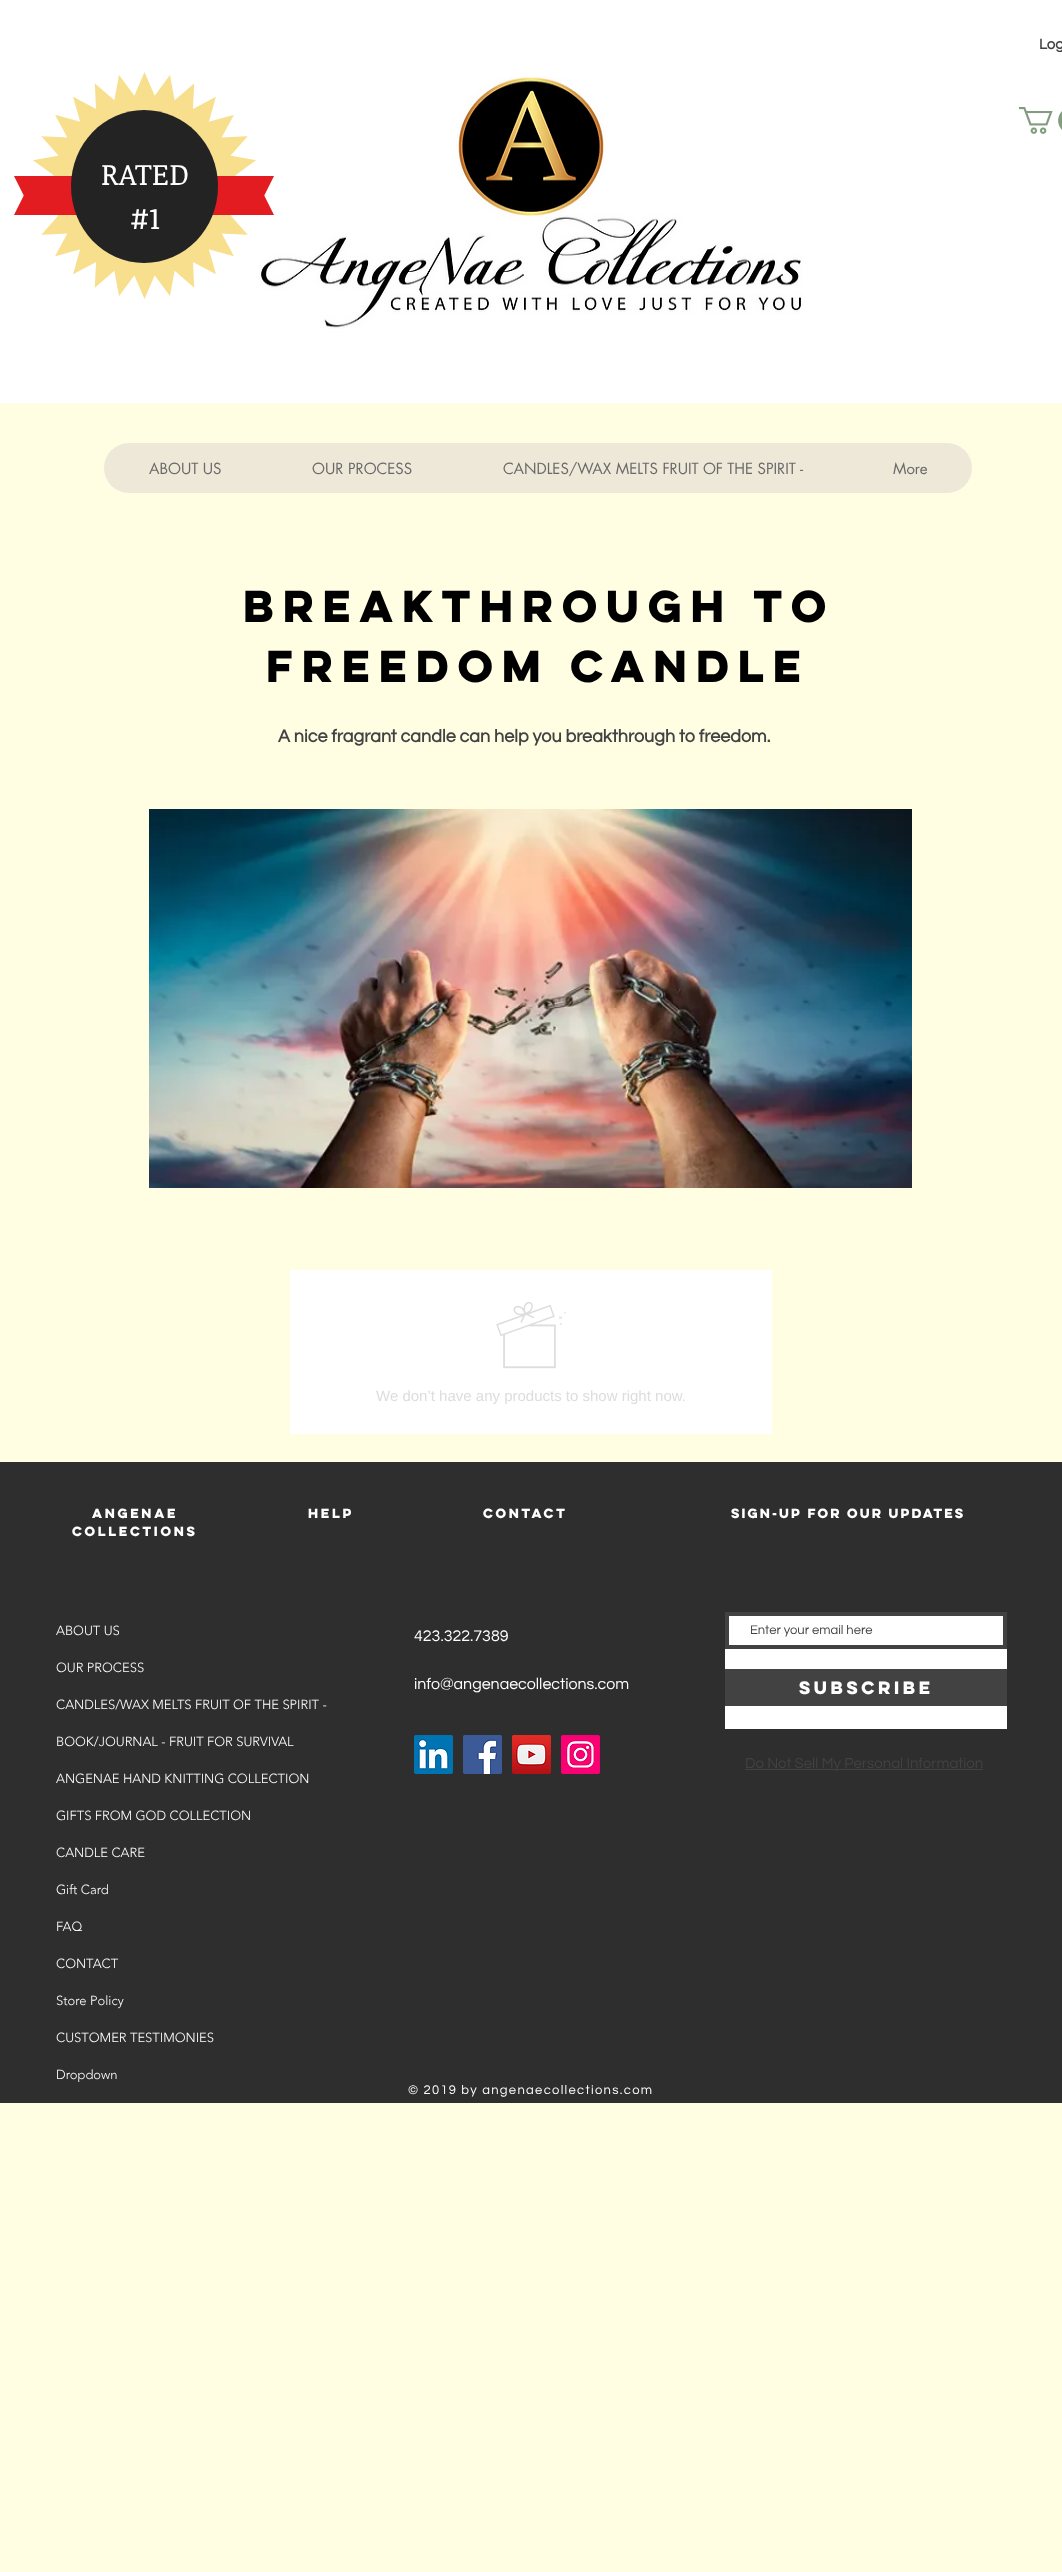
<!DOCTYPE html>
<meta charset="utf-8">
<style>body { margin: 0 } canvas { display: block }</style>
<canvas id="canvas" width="1062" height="2572"></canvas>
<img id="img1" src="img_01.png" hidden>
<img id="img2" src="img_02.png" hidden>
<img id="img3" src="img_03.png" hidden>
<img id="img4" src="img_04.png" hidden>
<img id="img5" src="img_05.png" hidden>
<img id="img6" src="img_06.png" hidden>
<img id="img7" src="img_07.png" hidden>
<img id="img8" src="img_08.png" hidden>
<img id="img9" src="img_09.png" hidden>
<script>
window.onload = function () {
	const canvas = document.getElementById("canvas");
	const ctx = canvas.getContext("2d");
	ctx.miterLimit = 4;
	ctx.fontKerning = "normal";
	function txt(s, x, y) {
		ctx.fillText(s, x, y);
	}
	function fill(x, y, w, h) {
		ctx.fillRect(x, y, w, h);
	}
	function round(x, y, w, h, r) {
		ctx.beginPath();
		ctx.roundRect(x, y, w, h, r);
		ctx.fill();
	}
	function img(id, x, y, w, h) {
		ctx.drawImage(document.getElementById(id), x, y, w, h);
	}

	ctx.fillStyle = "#FFFDE2";
	fill(0, 0, 1062, 2572);
	ctx.fillStyle = "#FFFFFF";
	fill(0, 0, 1062, 403);
	img("img1", 33, 72, 223, 227);
	img("img2", 259, 77, 544, 252);
	img("img3", 1019, 107, 43, 27);
	ctx.save();
	ctx.beginPath();
	ctx.rect(14, 176, 131, 20);
	ctx.clip();
	ctx.fillStyle = "#E21C21";
	ctx.beginPath();
	ctx.moveTo(14, 176);
	ctx.lineTo(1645, 176);
	ctx.lineTo(645, 1176);
	ctx.lineTo(514, 1176);
	ctx.closePath();
	ctx.fill();
	ctx.restore();
	ctx.save();
	ctx.beginPath();
	ctx.rect(144, 176, 130, 20);
	ctx.clip();
	ctx.fillStyle = "#E21C21";
	ctx.beginPath();
	ctx.moveTo(-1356, 176);
	ctx.lineTo(274, 176);
	ctx.lineTo(-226, 1176);
	ctx.lineTo(-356, 1176);
	ctx.closePath();
	ctx.fill();
	ctx.restore();
	ctx.save();
	ctx.beginPath();
	ctx.rect(14, 195, 131, 20);
	ctx.clip();
	ctx.fillStyle = "#E21C21";
	ctx.beginPath();
	ctx.moveTo(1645, 215);
	ctx.lineTo(14, 215);
	ctx.lineTo(514, -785);
	ctx.lineTo(645, -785);
	ctx.closePath();
	ctx.fill();
	ctx.restore();
	ctx.save();
	ctx.beginPath();
	ctx.rect(144, 195, 130, 20);
	ctx.clip();
	ctx.fillStyle = "#E21C21";
	ctx.beginPath();
	ctx.moveTo(274, 215);
	ctx.lineTo(-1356, 215);
	ctx.lineTo(-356, -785);
	ctx.lineTo(-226, -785);
	ctx.closePath();
	ctx.fill();
	ctx.restore();
	ctx.fillStyle = "#242323";
	ctx.beginPath();
	ctx.moveTo(218, 186);
	ctx.bezierCurveTo(218, 229, 185, 263, 144, 263);
	ctx.bezierCurveTo(104, 263, 71, 229, 71, 186);
	ctx.bezierCurveTo(71, 144, 104, 110, 144, 110);
	ctx.bezierCurveTo(185, 110, 218, 144, 218, 186);
	ctx.closePath();
	ctx.fill();
	ctx.fillStyle = "#EEE8D8";
	round(104, 443, 868, 50, 25);
	img("img4", 149, 809, 763, 379);
	ctx.fillStyle = "#FFFFFF";
	fill(290, 1270, 482, 164);
	img("img5", 496, 1301, 70, 68);
	ctx.fillStyle = "#2F2E2E";
	fill(0, 1462, 1062, 641);
	ctx.fillStyle = "#FFFFFF";
	fill(725, 1616, 282, 113);
	ctx.strokeStyle = "#424242";
	ctx.lineWidth = 4;
	ctx.strokeRect(727, 1614, 278, 33);
	ctx.fillStyle = "#424242";
	fill(725, 1669, 282, 37);
	img("img6", 414, 1735, 39, 39);
	img("img7", 463, 1735, 39, 39);
	img("img8", 512, 1735, 39, 39);
	img("img9", 561, 1735, 39, 39);
	fill(745, 1769, 238, 1);
	ctx.font = "bold 15px Questrial";
	txt("Log", 1039, 49);
	ctx.font = "30px Noticia Text";
	ctx.fillStyle = "#FFFFFF";
	txt("RATED", 101, 185);
	txt("#1", 130, 229);
	ctx.font = "15px futura";
	ctx.fillStyle = "#696969";
	txt("ABOUT US", 149, 474);
	txt("OUR PROCESS", 312, 474);
	txt("CANDLES/WAX MELTS FRUIT OF THE SPIRIT -", 503, 474);
	txt("More", 893, 474);
	ctx.font = "bold 40px 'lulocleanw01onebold'";
	ctx.fillStyle = "#000000";
	txt("breakthrough to", 243, 622);
	txt("freedom candle", 266, 682);
	ctx.font = "bold 18px Questrial";
	ctx.fillStyle = "#424242";
	txt("A nice fragrant candle can help you breakthrough to freedom.", 278, 742);
	ctx.font = "15px Liberation Sans";
	ctx.fillStyle = "#DDDDDD";
	txt("We don’t have any products to show right now.", 376, 1401);
	ctx.font = "bold 12px 'lulocleanw01onebold'";
	ctx.fillStyle = "#FFFFFF";
	txt("angenae", 92, 1518);
	txt("collections", 72, 1536);
	txt("HELP", 308, 1518);
	txt("CONTACT", 483, 1518);
	ctx.letterSpacing = "-0.6px";
	txt("sign-up for ouR updates", 731, 1518);
	ctx.letterSpacing = "0px";
	ctx.font = "300 13px 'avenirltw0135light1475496'";
	txt("ABOUT US", 56, 1635);
	txt("OUR PROCESS", 56, 1672);
	txt("CANDLES/WAX MELTS FRUIT OF THE SPIRIT -", 56, 1709);
	txt("BOOK/JOURNAL - FRUIT FOR SURVIVAL", 56, 1746);
	txt("ANGENAE HAND KNITTING COLLECTION", 56, 1783);
	txt("GIFTS FROM GOD COLLECTION", 56, 1820);
	txt("CANDLE CARE", 56, 1857);
	txt("Gift Card", 56, 1894);
	txt("FAQ", 56, 1931);
	txt("CONTACT", 56, 1968);
	txt("Store Policy", 56, 2005);
	txt("CUSTOMER TESTIMONIES", 56, 2042);
	txt("Dropdown", 56, 2079);
	ctx.font = "16px Questrial";
	txt("423.322.7389", 414, 1641);
	txt("info@angenaecollections.com", 414, 1689);
	ctx.font = "13px Questrial";
	ctx.fillStyle = "#424242";
	txt("Enter your email here", 750, 1634);
	ctx.font = "bold 16px 'lulocleanw01onebold'";
	ctx.fillStyle = "#FFFFFF";
	txt("SUBSCRIBE", 799, 1694);
	ctx.font = "15px Questrial";
	ctx.fillStyle = "#424242";
	txt("Do Not Sell My Personal Information", 745, 1768);
	ctx.letterSpacing = "1.3px";
	ctx.font = "13px Questrial";
	ctx.fillStyle = "#FFFFFF";
	txt("© 2019 by angenaecollections.com", 408, 2094);
};
</script>
